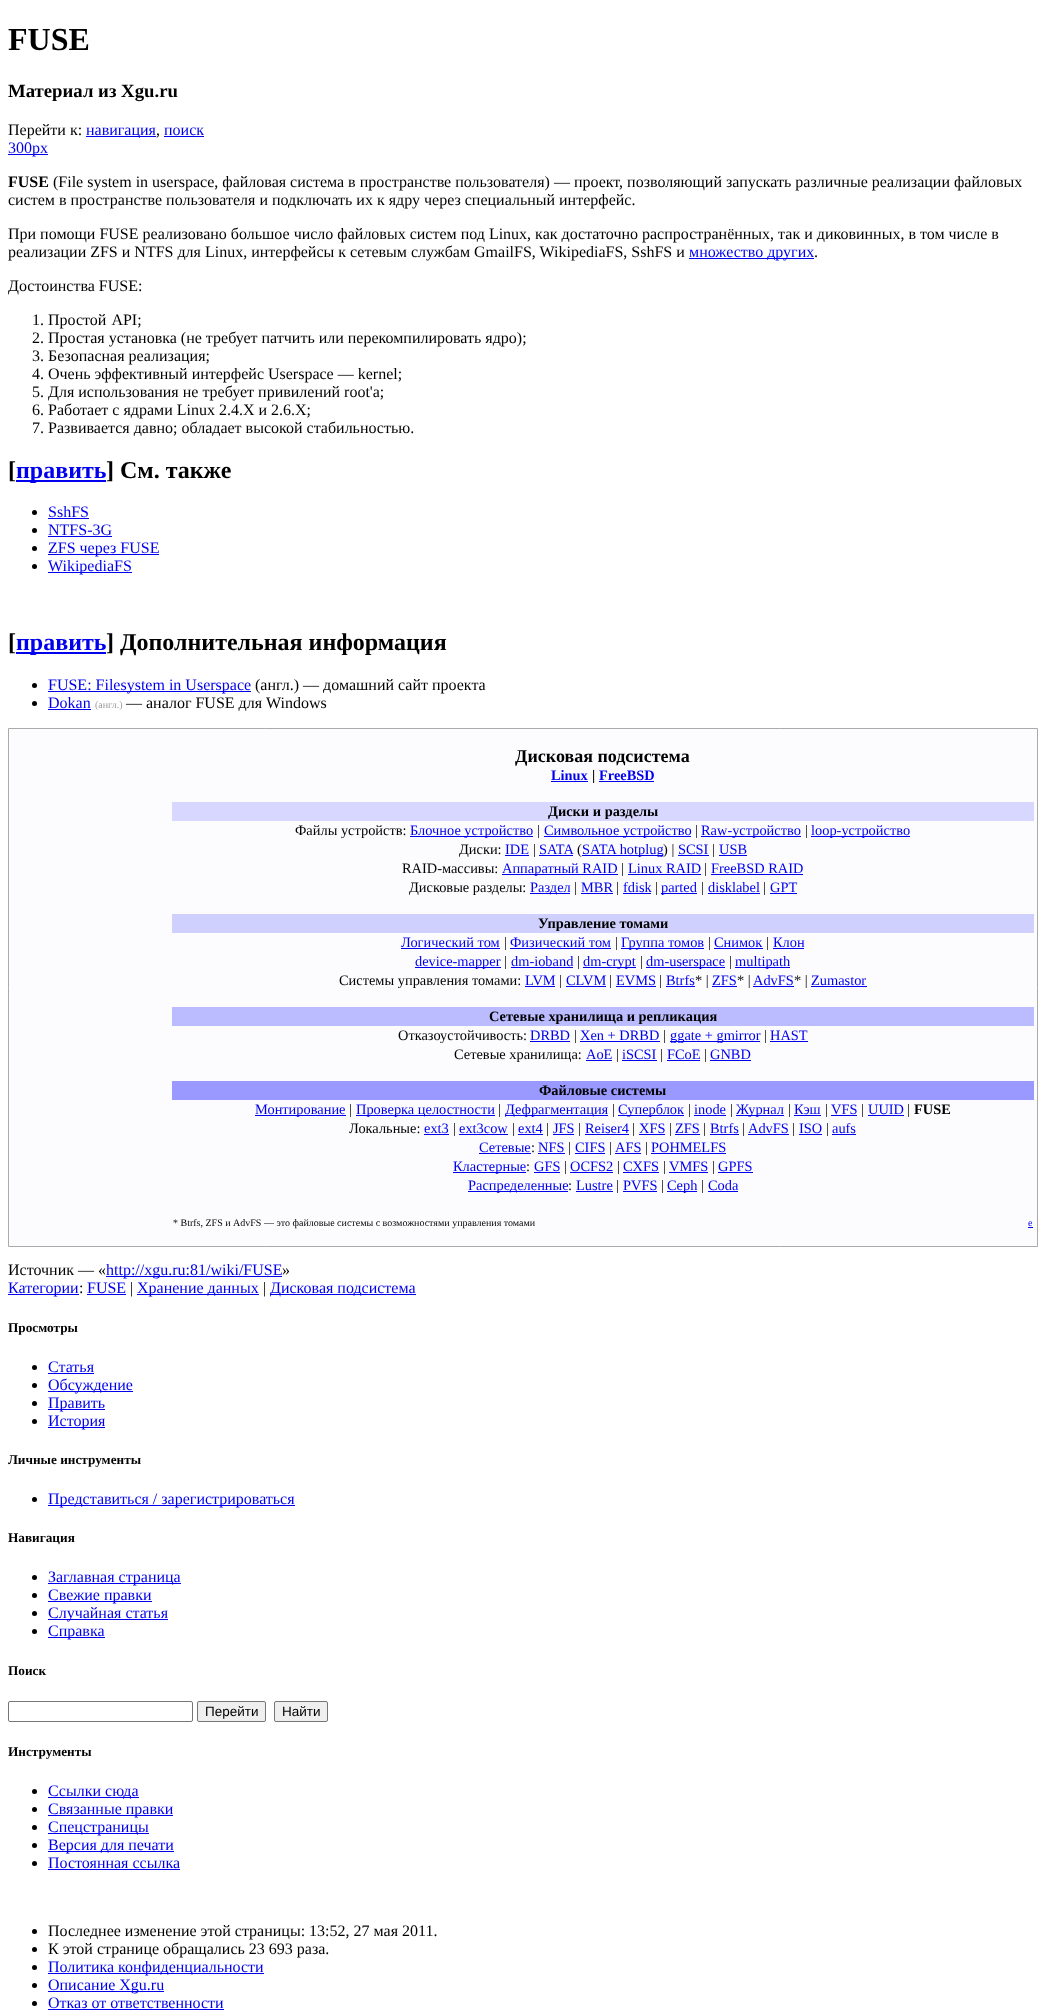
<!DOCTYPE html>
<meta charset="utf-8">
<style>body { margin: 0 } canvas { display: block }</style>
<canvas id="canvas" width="1046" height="2016"></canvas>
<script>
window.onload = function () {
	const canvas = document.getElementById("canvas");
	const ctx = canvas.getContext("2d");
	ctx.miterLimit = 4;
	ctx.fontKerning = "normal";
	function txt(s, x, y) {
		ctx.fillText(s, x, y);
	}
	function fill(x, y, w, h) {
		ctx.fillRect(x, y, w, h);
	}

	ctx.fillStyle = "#FFFFFF";
	fill(0, 0, 1046, 2016);
	ctx.fillStyle = "#0000EE";
	fill(86, 136, 70, 1);
	fill(164, 136, 40, 1);
	fill(8, 154, 40, 1);
	fill(689, 258, 125, 1);
	fill(16, 480, 90, 2);
	ctx.fillStyle = "#000000";
	ctx.beginPath();
	ctx.arc(34.5, 512.5, 2.5, 0, Math.PI * 2);
	ctx.fill();
	ctx.fillStyle = "#0000EE";
	fill(48, 518, 41, 1);
	ctx.fillStyle = "#000000";
	ctx.beginPath();
	ctx.arc(34.5, 530.5, 2.5, 0, Math.PI * 2);
	ctx.fill();
	ctx.fillStyle = "#0000EE";
	fill(48, 536, 64, 1);
	ctx.fillStyle = "#000000";
	ctx.beginPath();
	ctx.arc(34.5, 548.5, 2.5, 0, Math.PI * 2);
	ctx.fill();
	ctx.fillStyle = "#0000EE";
	fill(48, 554, 111, 1);
	ctx.fillStyle = "#000000";
	ctx.beginPath();
	ctx.arc(34.5, 566.5, 2.5, 0, Math.PI * 2);
	ctx.fill();
	ctx.fillStyle = "#0000EE";
	fill(48, 572, 84, 1);
	fill(16, 652, 90, 2);
	ctx.fillStyle = "#000000";
	ctx.beginPath();
	ctx.arc(34.5, 685.5, 2.5, 0, Math.PI * 2);
	ctx.fill();
	ctx.fillStyle = "#0000EE";
	fill(48, 691, 203, 1);
	ctx.fillStyle = "#000000";
	ctx.beginPath();
	ctx.arc(34.5, 703.5, 2.5, 0, Math.PI * 2);
	ctx.fill();
	ctx.fillStyle = "#0000EE";
	fill(48, 709, 43, 1);
	ctx.fillStyle = "#FCFCFF";
	ctx.beginPath();
	ctx.rect(8.5, 728.5, 1029, 518);
	ctx.fill();
	ctx.strokeStyle = "#AAAAAA";
	ctx.stroke();
	ctx.fillStyle = "#0000EE";
	fill(551, 781, 37, 1);
	fill(599, 781, 55, 1);
	ctx.fillStyle = "#D7D7FF";
	fill(172, 802, 862, 19);
	ctx.fillStyle = "#0000EE";
	fill(410, 836, 123, 1);
	fill(544, 836, 147, 1);
	fill(701, 836, 100, 1);
	fill(811, 836, 99, 1);
	fill(505, 855, 24, 1);
	fill(539, 855, 34, 1);
	fill(582, 855, 81, 1);
	fill(678, 855, 31, 1);
	fill(719, 855, 28, 1);
	fill(502, 874, 116, 1);
	fill(628, 874, 73, 1);
	fill(711, 874, 92, 1);
	fill(530, 893, 40, 1);
	fill(581, 893, 32, 1);
	fill(623, 893, 28, 1);
	fill(661, 893, 36, 1);
	fill(708, 893, 52, 1);
	fill(770, 893, 27, 1);
	ctx.fillStyle = "#D0D0FF";
	fill(172, 914, 862, 19);
	ctx.fillStyle = "#0000EE";
	fill(401, 948, 99, 1);
	fill(510, 948, 101, 1);
	fill(621, 948, 83, 1);
	fill(714, 948, 49, 1);
	fill(773, 948, 31, 1);
	fill(415, 967, 86, 1);
	fill(511, 967, 62, 1);
	fill(583, 967, 53, 1);
	fill(646, 967, 79, 1);
	fill(735, 967, 55, 1);
	fill(525, 986, 30, 1);
	fill(566, 986, 40, 1);
	fill(616, 986, 40, 1);
	fill(666, 986, 29, 1);
	fill(712, 986, 25, 1);
	fill(753, 986, 41, 1);
	fill(811, 986, 56, 1);
	ctx.fillStyle = "#BBBBFF";
	fill(172, 1007, 862, 19);
	ctx.fillStyle = "#0000EE";
	fill(530, 1041, 40, 1);
	fill(580, 1041, 80, 1);
	fill(670, 1041, 90, 1);
	fill(770, 1041, 38, 1);
	fill(586, 1060, 26, 1);
	fill(622, 1060, 35, 1);
	fill(667, 1060, 33, 1);
	fill(710, 1060, 41, 1);
	ctx.fillStyle = "#9999FF";
	fill(172, 1081, 862, 19);
	ctx.fillStyle = "#0000EE";
	fill(255, 1115, 91, 1);
	fill(356, 1115, 139, 1);
	fill(505, 1115, 103, 1);
	fill(618, 1115, 66, 1);
	fill(694, 1115, 32, 1);
	fill(736, 1115, 48, 1);
	fill(794, 1115, 27, 1);
	fill(831, 1115, 26, 1);
	fill(868, 1115, 36, 1);
	fill(424, 1134, 25, 1);
	fill(459, 1134, 49, 1);
	fill(518, 1134, 25, 1);
	fill(553, 1134, 21, 1);
	fill(585, 1134, 44, 1);
	fill(639, 1134, 26, 1);
	fill(675, 1134, 25, 1);
	fill(710, 1134, 29, 1);
	fill(748, 1134, 41, 1);
	fill(799, 1134, 23, 1);
	fill(832, 1134, 24, 1);
	fill(479, 1153, 52, 1);
	fill(538, 1153, 27, 1);
	fill(575, 1153, 30, 1);
	fill(615, 1153, 26, 1);
	fill(651, 1153, 75, 1);
	fill(453, 1172, 73, 1);
	fill(534, 1172, 26, 1);
	fill(570, 1172, 43, 1);
	fill(623, 1172, 36, 1);
	fill(669, 1172, 39, 1);
	fill(718, 1172, 35, 1);
	fill(468, 1191, 100, 1);
	fill(576, 1191, 37, 1);
	fill(623, 1191, 34, 1);
	fill(667, 1191, 30, 1);
	fill(708, 1191, 30, 1);
	fill(1028, 1227, 5, 1);
	fill(106, 1276, 176, 1);
	fill(8, 1294, 71, 1);
	fill(87, 1294, 39, 1);
	fill(137, 1294, 122, 1);
	fill(270, 1294, 146, 1);
	ctx.fillStyle = "#000000";
	ctx.beginPath();
	ctx.arc(34.5, 1367.5, 2.5, 0, Math.PI * 2);
	ctx.fill();
	ctx.fillStyle = "#0000EE";
	fill(48, 1373, 46, 1);
	ctx.fillStyle = "#000000";
	ctx.beginPath();
	ctx.arc(34.5, 1385.5, 2.5, 0, Math.PI * 2);
	ctx.fill();
	ctx.fillStyle = "#0000EE";
	fill(48, 1391, 85, 1);
	ctx.fillStyle = "#000000";
	ctx.beginPath();
	ctx.arc(34.5, 1403.5, 2.5, 0, Math.PI * 2);
	ctx.fill();
	ctx.fillStyle = "#0000EE";
	fill(48, 1409, 57, 1);
	ctx.fillStyle = "#000000";
	ctx.beginPath();
	ctx.arc(34.5, 1421.5, 2.5, 0, Math.PI * 2);
	ctx.fill();
	ctx.fillStyle = "#0000EE";
	fill(48, 1427, 57, 1);
	ctx.fillStyle = "#000000";
	ctx.beginPath();
	ctx.arc(34.5, 1499.5, 2.5, 0, Math.PI * 2);
	ctx.fill();
	ctx.fillStyle = "#0000EE";
	fill(48, 1505, 247, 1);
	ctx.fillStyle = "#000000";
	ctx.beginPath();
	ctx.arc(34.5, 1577.5, 2.5, 0, Math.PI * 2);
	ctx.fill();
	ctx.fillStyle = "#0000EE";
	fill(48, 1583, 133, 1);
	ctx.fillStyle = "#000000";
	ctx.beginPath();
	ctx.arc(34.5, 1595.5, 2.5, 0, Math.PI * 2);
	ctx.fill();
	ctx.fillStyle = "#0000EE";
	fill(48, 1601, 104, 1);
	ctx.fillStyle = "#000000";
	ctx.beginPath();
	ctx.arc(34.5, 1613.5, 2.5, 0, Math.PI * 2);
	ctx.fill();
	ctx.fillStyle = "#0000EE";
	fill(48, 1619, 120, 1);
	ctx.fillStyle = "#000000";
	ctx.beginPath();
	ctx.arc(34.5, 1631.5, 2.5, 0, Math.PI * 2);
	ctx.fill();
	ctx.fillStyle = "#0000EE";
	fill(48, 1637, 57, 1);
	ctx.beginPath();
	ctx.roundRect(8.5, 1701.5, 184, 20, 1.5);
	ctx.strokeStyle = "#767676";
	ctx.stroke();
	ctx.fillStyle = "#EFEFEF";
	ctx.beginPath();
	ctx.roundRect(197.5, 1701.5, 68, 20, 1.5);
	ctx.fill();
	ctx.stroke();
	ctx.beginPath();
	ctx.roundRect(274.5, 1701.5, 53, 20, 1.5);
	ctx.fill();
	ctx.stroke();
	ctx.fillStyle = "#000000";
	ctx.beginPath();
	ctx.arc(34.5, 1791.5, 2.5, 0, Math.PI * 2);
	ctx.fill();
	ctx.fillStyle = "#0000EE";
	fill(48, 1797, 91, 1);
	ctx.fillStyle = "#000000";
	ctx.beginPath();
	ctx.arc(34.5, 1809.5, 2.5, 0, Math.PI * 2);
	ctx.fill();
	ctx.fillStyle = "#0000EE";
	fill(48, 1815, 125, 1);
	ctx.fillStyle = "#000000";
	ctx.beginPath();
	ctx.arc(34.5, 1827.5, 2.5, 0, Math.PI * 2);
	ctx.fill();
	ctx.fillStyle = "#0000EE";
	fill(48, 1833, 101, 1);
	ctx.fillStyle = "#000000";
	ctx.beginPath();
	ctx.arc(34.5, 1845.5, 2.5, 0, Math.PI * 2);
	ctx.fill();
	ctx.fillStyle = "#0000EE";
	fill(48, 1851, 126, 1);
	ctx.fillStyle = "#000000";
	ctx.beginPath();
	ctx.arc(34.5, 1863.5, 2.5, 0, Math.PI * 2);
	ctx.fill();
	ctx.fillStyle = "#0000EE";
	fill(48, 1869, 132, 1);
	ctx.fillStyle = "#000000";
	ctx.beginPath();
	ctx.arc(34.5, 1931.5, 2.5, 0, Math.PI * 2);
	ctx.fill();
	ctx.beginPath();
	ctx.arc(34.5, 1949.5, 2.5, 0, Math.PI * 2);
	ctx.fill();
	ctx.beginPath();
	ctx.arc(34.5, 1967.5, 2.5, 0, Math.PI * 2);
	ctx.fill();
	ctx.fillStyle = "#0000EE";
	fill(48, 1973, 216, 1);
	ctx.fillStyle = "#000000";
	ctx.beginPath();
	ctx.arc(34.5, 1985.5, 2.5, 0, Math.PI * 2);
	ctx.fill();
	ctx.fillStyle = "#0000EE";
	fill(48, 1991, 116, 1);
	ctx.fillStyle = "#000000";
	ctx.beginPath();
	ctx.arc(34.5, 2003.5, 2.5, 0, Math.PI * 2);
	ctx.fill();
	ctx.fillStyle = "#0000EE";
	fill(48, 2009, 176, 1);
	ctx.font = "bold 32px Liberation Serif";
	ctx.fillStyle = "#000000";
	txt("FUSE", 8, 50);
	ctx.font = "bold 18.75px Liberation Serif";
	txt("Материал из Xgu.ru", 8, 97);
	ctx.font = "16px Liberation Serif";
	txt("Перейти к:", 8, 135);
	ctx.fillStyle = "#0000EE";
	txt("навигация", 86, 135);
	ctx.fillStyle = "#000000";
	txt(",", 156, 135);
	ctx.fillStyle = "#0000EE";
	txt("поиск", 164, 135);
	txt("300px", 8, 153);
	ctx.font = "bold 16px Liberation Serif";
	ctx.fillStyle = "#000000";
	txt("FUSE", 8, 187);
	ctx.font = "16px Liberation Serif";
	txt("(File system in userspace, файловая система в пространстве пользователя) — проект, позволяющий запускать различные реализации файловых", 53, 187);
	txt("систем в пространстве пользователя и подключать их к ядру через специальный интерфейс.", 8, 205);
	txt("При помощи FUSE реализовано большое число файловых систем под Linux, как достаточно распространённых, так и диковинных, в том числе в", 8, 239);
	txt("реализации ZFS и NTFS для Linux, интерфейсы к сетевым службам GmailFS, WikipediaFS, SshFS и", 8, 257);
	ctx.fillStyle = "#0000EE";
	txt("множество других", 689, 257);
	ctx.fillStyle = "#000000";
	txt(".", 814, 257);
	txt("Достоинства FUSE:", 8, 291);
	txt("1.", 32, 325);
	ctx.wordSpacing = "1px";
	txt("Простой API;", 48, 325);
	ctx.wordSpacing = "0px";
	txt("2. Простая установка (не требует патчить или перекомпилировать ядро);", 32, 343);
	txt("3. Безопасная реализация;", 32, 361);
	txt("4. Очень эффективный интерфейс Userspace — kernel;", 32, 379);
	txt("5. Для использования не требует привилений root'а;", 32, 397);
	txt("6. Работает с ядрами Linux 2.4.X и 2.6.X;", 32, 415);
	txt("7. Развивается давно; обладает высокой стабильностью.", 32, 433);
	ctx.font = "bold 24px Liberation Serif";
	txt("[", 8, 478);
	ctx.fillStyle = "#0000EE";
	txt("править", 16, 478);
	ctx.fillStyle = "#000000";
	txt("] См. также", 106, 478);
	ctx.font = "16px Liberation Serif";
	ctx.fillStyle = "#0000EE";
	txt("SshFS", 48, 517);
	txt("NTFS-3G", 48, 535);
	txt("ZFS через FUSE", 48, 553);
	txt("WikipediaFS", 48, 571);
	ctx.font = "bold 24px Liberation Serif";
	ctx.fillStyle = "#000000";
	txt("[", 8, 650);
	ctx.fillStyle = "#0000EE";
	txt("править", 16, 650);
	ctx.fillStyle = "#000000";
	txt("] Дополнительная информация", 106, 650);
	ctx.font = "16px Liberation Serif";
	ctx.fillStyle = "#0000EE";
	txt("FUSE: Filesystem in Userspace", 48, 690);
	ctx.fillStyle = "#000000";
	txt("(англ.) — домашний сайт проекта", 255, 690);
	ctx.fillStyle = "#0000EE";
	txt("Dokan", 48, 708);
	ctx.font = "10px Liberation Serif";
	ctx.fillStyle = "#999999";
	txt("(англ.)", 95, 708);
	ctx.font = "16px Liberation Serif";
	ctx.fillStyle = "#000000";
	txt("— аналог FUSE для Windows", 126, 708);
	ctx.font = "bold 18px Liberation Serif";
	txt("Дисковая подсистема", 515, 762);
	ctx.font = "bold 14.4px Liberation Serif";
	ctx.fillStyle = "#0000EE";
	txt("Linux", 551, 780);
	ctx.fillStyle = "#000000";
	txt("|", 592, 780);
	ctx.fillStyle = "#0000EE";
	txt("FreeBSD", 599, 780);
	ctx.fillStyle = "#000000";
	txt("Диски и разделы", 548, 816);
	ctx.font = "14.4px Liberation Serif";
	txt("Файлы устройств:", 295, 835);
	ctx.fillStyle = "#0000EE";
	txt("Блочное устройство", 410, 835);
	ctx.fillStyle = "#000000";
	txt("|", 537, 835);
	ctx.fillStyle = "#0000EE";
	txt("Символьное устройство", 544, 835);
	ctx.fillStyle = "#000000";
	txt("|", 695, 835);
	ctx.fillStyle = "#0000EE";
	txt("Raw-устройство", 701, 835);
	ctx.fillStyle = "#000000";
	txt("|", 805, 835);
	ctx.fillStyle = "#0000EE";
	txt("loop-устройство", 811, 835);
	ctx.fillStyle = "#000000";
	txt("Диски:", 459, 854);
	ctx.fillStyle = "#0000EE";
	txt("IDE", 505, 854);
	ctx.fillStyle = "#000000";
	txt("|", 533, 854);
	ctx.fillStyle = "#0000EE";
	txt("SATA", 539, 854);
	ctx.fillStyle = "#000000";
	txt("(", 577, 854);
	ctx.fillStyle = "#0000EE";
	txt("SATA hotplug", 582, 854);
	ctx.fillStyle = "#000000";
	txt(") |", 663, 854);
	ctx.fillStyle = "#0000EE";
	txt("SCSI", 678, 854);
	ctx.fillStyle = "#000000";
	txt("|", 712, 854);
	ctx.fillStyle = "#0000EE";
	txt("USB", 719, 854);
	ctx.fillStyle = "#000000";
	txt("RAID-массивы:", 402, 873);
	ctx.fillStyle = "#0000EE";
	txt("Аппаратный RAID", 502, 873);
	ctx.fillStyle = "#000000";
	txt("|", 621, 873);
	ctx.fillStyle = "#0000EE";
	txt("Linux RAID", 628, 873);
	ctx.fillStyle = "#000000";
	txt("|", 704, 873);
	ctx.fillStyle = "#0000EE";
	txt("FreeBSD RAID", 711, 873);
	ctx.fillStyle = "#000000";
	txt("Дисковые разделы:", 409, 892);
	ctx.fillStyle = "#0000EE";
	txt("Раздел", 530, 892);
	ctx.fillStyle = "#000000";
	txt("|", 574, 892);
	ctx.fillStyle = "#0000EE";
	txt("MBR", 581, 892);
	ctx.fillStyle = "#000000";
	txt("|", 616, 892);
	ctx.fillStyle = "#0000EE";
	txt("fdisk", 623, 892);
	ctx.fillStyle = "#000000";
	txt("|", 655, 892);
	ctx.fillStyle = "#0000EE";
	txt("parted", 661, 892);
	ctx.fillStyle = "#000000";
	txt("|", 701, 892);
	ctx.fillStyle = "#0000EE";
	txt("disklabel", 708, 892);
	ctx.fillStyle = "#000000";
	txt("|", 763, 892);
	ctx.fillStyle = "#0000EE";
	txt("GPT", 770, 892);
	ctx.font = "bold 14.4px Liberation Serif";
	ctx.fillStyle = "#000000";
	txt("Управление томами", 538, 928);
	ctx.font = "14.4px Liberation Serif";
	ctx.fillStyle = "#0000EE";
	txt("Логический том", 401, 947);
	ctx.fillStyle = "#000000";
	txt("|", 504, 947);
	ctx.fillStyle = "#0000EE";
	txt("Физический том", 510, 947);
	ctx.fillStyle = "#000000";
	txt("|", 615, 947);
	ctx.fillStyle = "#0000EE";
	txt("Группа томов", 621, 947);
	ctx.fillStyle = "#000000";
	txt("|", 708, 947);
	ctx.fillStyle = "#0000EE";
	txt("Снимок", 714, 947);
	ctx.fillStyle = "#000000";
	txt("|", 766, 947);
	ctx.fillStyle = "#0000EE";
	txt("Клон", 773, 947);
	txt("device-mapper", 415, 966);
	ctx.fillStyle = "#000000";
	txt("|", 504, 966);
	ctx.fillStyle = "#0000EE";
	txt("dm-ioband", 511, 966);
	ctx.fillStyle = "#000000";
	txt("|", 577, 966);
	ctx.fillStyle = "#0000EE";
	txt("dm-crypt", 583, 966);
	ctx.fillStyle = "#000000";
	txt("|", 640, 966);
	ctx.fillStyle = "#0000EE";
	txt("dm-userspace", 646, 966);
	ctx.fillStyle = "#000000";
	txt("|", 729, 966);
	ctx.fillStyle = "#0000EE";
	txt("multipath", 735, 966);
	ctx.fillStyle = "#000000";
	txt("Системы управления томами:", 339, 985);
	ctx.fillStyle = "#0000EE";
	txt("LVM", 525, 985);
	ctx.fillStyle = "#000000";
	txt("|", 559, 985);
	ctx.fillStyle = "#0000EE";
	txt("CLVM", 566, 985);
	ctx.fillStyle = "#000000";
	txt("|", 609, 985);
	ctx.fillStyle = "#0000EE";
	txt("EVMS", 616, 985);
	ctx.fillStyle = "#000000";
	txt("|", 659, 985);
	ctx.fillStyle = "#0000EE";
	txt("Btrfs", 666, 985);
	ctx.fillStyle = "#000000";
	txt("* |", 695, 985);
	ctx.fillStyle = "#0000EE";
	txt("ZFS", 712, 985);
	ctx.fillStyle = "#000000";
	txt("* |", 737, 985);
	ctx.fillStyle = "#0000EE";
	txt("AdvFS", 753, 985);
	ctx.fillStyle = "#000000";
	txt("* |", 794, 985);
	ctx.fillStyle = "#0000EE";
	txt("Zumastor", 811, 985);
	ctx.font = "bold 14.4px Liberation Serif";
	ctx.fillStyle = "#000000";
	txt("Сетевые хранилища и репликация", 489, 1021);
	ctx.font = "14.4px Liberation Serif";
	txt("Отказоустойчивость:", 398, 1040);
	ctx.fillStyle = "#0000EE";
	txt("DRBD", 530, 1040);
	ctx.fillStyle = "#000000";
	txt("|", 574, 1040);
	ctx.fillStyle = "#0000EE";
	txt("Xen + DRBD", 580, 1040);
	ctx.fillStyle = "#000000";
	txt("|", 663, 1040);
	ctx.fillStyle = "#0000EE";
	txt("ggate + gmirror", 670, 1040);
	ctx.fillStyle = "#000000";
	txt("|", 764, 1040);
	ctx.fillStyle = "#0000EE";
	txt("HAST", 770, 1040);
	ctx.fillStyle = "#000000";
	txt("Сетевые хранилища:", 454, 1059);
	ctx.fillStyle = "#0000EE";
	txt("AoE", 586, 1059);
	ctx.fillStyle = "#000000";
	txt("|", 616, 1059);
	ctx.fillStyle = "#0000EE";
	txt("iSCSI", 622, 1059);
	ctx.fillStyle = "#000000";
	txt("|", 660, 1059);
	ctx.fillStyle = "#0000EE";
	txt("FCoE", 667, 1059);
	ctx.fillStyle = "#000000";
	txt("|", 704, 1059);
	ctx.fillStyle = "#0000EE";
	txt("GNBD", 710, 1059);
	ctx.font = "bold 14.4px Liberation Serif";
	ctx.fillStyle = "#000000";
	txt("Файловые системы", 539, 1095);
	ctx.font = "14.4px Liberation Serif";
	ctx.fillStyle = "#0000EE";
	txt("Монтирование", 255, 1114);
	ctx.fillStyle = "#000000";
	txt("|", 349, 1114);
	ctx.fillStyle = "#0000EE";
	txt("Проверка целостности", 356, 1114);
	ctx.fillStyle = "#000000";
	txt("|", 498, 1114);
	ctx.fillStyle = "#0000EE";
	txt("Дефрагментация", 505, 1114);
	ctx.fillStyle = "#000000";
	txt("|", 612, 1114);
	ctx.fillStyle = "#0000EE";
	txt("Суперблок", 618, 1114);
	ctx.fillStyle = "#000000";
	txt("|", 688, 1114);
	ctx.fillStyle = "#0000EE";
	txt("inode", 694, 1114);
	ctx.fillStyle = "#000000";
	txt("|", 730, 1114);
	ctx.fillStyle = "#0000EE";
	txt("Журнал", 736, 1114);
	ctx.fillStyle = "#000000";
	txt("|", 788, 1114);
	ctx.fillStyle = "#0000EE";
	txt("Кэш", 794, 1114);
	ctx.fillStyle = "#000000";
	txt("|", 825, 1114);
	ctx.fillStyle = "#0000EE";
	txt("VFS", 831, 1114);
	ctx.fillStyle = "#000000";
	txt("|", 861, 1114);
	ctx.fillStyle = "#0000EE";
	txt("UUID", 868, 1114);
	ctx.fillStyle = "#000000";
	txt("|", 907, 1114);
	ctx.font = "bold 14.4px Liberation Serif";
	txt("FUSE", 914, 1114);
	ctx.font = "14.4px Liberation Serif";
	txt("Локальные:", 349, 1133);
	ctx.fillStyle = "#0000EE";
	txt("ext3", 424, 1133);
	ctx.fillStyle = "#000000";
	txt("|", 453, 1133);
	ctx.fillStyle = "#0000EE";
	txt("ext3cow", 459, 1133);
	ctx.fillStyle = "#000000";
	txt("|", 512, 1133);
	ctx.fillStyle = "#0000EE";
	txt("ext4", 518, 1133);
	ctx.fillStyle = "#000000";
	txt("|", 546, 1133);
	ctx.fillStyle = "#0000EE";
	txt("JFS", 553, 1133);
	ctx.fillStyle = "#000000";
	txt("|", 578, 1133);
	ctx.fillStyle = "#0000EE";
	txt("Reiser4", 585, 1133);
	ctx.fillStyle = "#000000";
	txt("|", 632, 1133);
	ctx.fillStyle = "#0000EE";
	txt("XFS", 639, 1133);
	ctx.fillStyle = "#000000";
	txt("|", 669, 1133);
	ctx.fillStyle = "#0000EE";
	txt("ZFS", 675, 1133);
	ctx.fillStyle = "#000000";
	txt("|", 703, 1133);
	ctx.fillStyle = "#0000EE";
	txt("Btrfs", 710, 1133);
	ctx.fillStyle = "#000000";
	txt("|", 742, 1133);
	ctx.fillStyle = "#0000EE";
	txt("AdvFS", 748, 1133);
	ctx.fillStyle = "#000000";
	txt("|", 792, 1133);
	ctx.fillStyle = "#0000EE";
	txt("ISO", 799, 1133);
	ctx.fillStyle = "#000000";
	txt("|", 826, 1133);
	ctx.fillStyle = "#0000EE";
	txt("aufs", 832, 1133);
	txt("Сетевые", 479, 1152);
	ctx.fillStyle = "#000000";
	txt(":", 531, 1152);
	ctx.fillStyle = "#0000EE";
	txt("NFS", 538, 1152);
	ctx.fillStyle = "#000000";
	txt("|", 568, 1152);
	ctx.fillStyle = "#0000EE";
	txt("CIFS", 575, 1152);
	ctx.fillStyle = "#000000";
	txt("|", 609, 1152);
	ctx.fillStyle = "#0000EE";
	txt("AFS", 615, 1152);
	ctx.fillStyle = "#000000";
	txt("|", 645, 1152);
	ctx.fillStyle = "#0000EE";
	txt("POHMELFS", 651, 1152);
	txt("Кластерные", 453, 1171);
	ctx.fillStyle = "#000000";
	txt(":", 526, 1171);
	ctx.fillStyle = "#0000EE";
	txt("GFS", 534, 1171);
	ctx.fillStyle = "#000000";
	txt("|", 564, 1171);
	ctx.fillStyle = "#0000EE";
	txt("OCFS2", 570, 1171);
	ctx.fillStyle = "#000000";
	txt("|", 617, 1171);
	ctx.fillStyle = "#0000EE";
	txt("CXFS", 623, 1171);
	ctx.fillStyle = "#000000";
	txt("|", 663, 1171);
	ctx.fillStyle = "#0000EE";
	txt("VMFS", 669, 1171);
	ctx.fillStyle = "#000000";
	txt("|", 712, 1171);
	ctx.fillStyle = "#0000EE";
	txt("GPFS", 718, 1171);
	txt("Распределенные", 468, 1190);
	ctx.fillStyle = "#000000";
	txt(":", 568, 1190);
	ctx.fillStyle = "#0000EE";
	txt("Lustre", 576, 1190);
	ctx.fillStyle = "#000000";
	txt("|", 616, 1190);
	ctx.fillStyle = "#0000EE";
	txt("PVFS", 623, 1190);
	ctx.fillStyle = "#000000";
	txt("|", 661, 1190);
	ctx.fillStyle = "#0000EE";
	txt("Ceph", 667, 1190);
	ctx.fillStyle = "#000000";
	txt("|", 701, 1190);
	ctx.fillStyle = "#0000EE";
	txt("Coda", 708, 1190);
	ctx.font = "10px Liberation Serif";
	ctx.fillStyle = "#000000";
	txt("* Btrfs, ZFS и AdvFS — это файловые системы с возможностями управления томами", 173, 1226);
	ctx.fillStyle = "#0000EE";
	txt("e", 1028, 1226);
	ctx.font = "16px Liberation Serif";
	ctx.fillStyle = "#000000";
	txt("Источник — «", 8, 1275);
	ctx.fillStyle = "#0000EE";
	txt("http://xgu.ru:81/wiki/FUSE", 106, 1275);
	ctx.fillStyle = "#000000";
	txt("»", 282, 1275);
	ctx.fillStyle = "#0000EE";
	txt("Категории", 8, 1293);
	ctx.fillStyle = "#000000";
	txt(":", 79, 1293);
	ctx.fillStyle = "#0000EE";
	txt("FUSE", 87, 1293);
	ctx.fillStyle = "#000000";
	txt("|", 130, 1293);
	ctx.fillStyle = "#0000EE";
	txt("Хранение данных", 137, 1293);
	ctx.fillStyle = "#000000";
	txt("|", 263, 1293);
	ctx.fillStyle = "#0000EE";
	txt("Дисковая подсистема", 270, 1293);
	ctx.font = "bold 13.25px Liberation Serif";
	ctx.fillStyle = "#000000";
	txt("Просмотры", 8, 1332);
	ctx.font = "16px Liberation Serif";
	ctx.fillStyle = "#0000EE";
	txt("Статья", 48, 1372);
	txt("Обсуждение", 48, 1390);
	txt("Править", 48, 1408);
	txt("История", 48, 1426);
	ctx.font = "bold 13.25px Liberation Serif";
	ctx.fillStyle = "#000000";
	txt("Личные инструменты", 8, 1464);
	ctx.font = "16px Liberation Serif";
	ctx.fillStyle = "#0000EE";
	txt("Представиться / зарегистрироваться", 48, 1504);
	ctx.font = "bold 13.25px Liberation Serif";
	ctx.fillStyle = "#000000";
	txt("Навигация", 8, 1542);
	ctx.font = "16px Liberation Serif";
	ctx.fillStyle = "#0000EE";
	txt("Заглавная страница", 48, 1582);
	txt("Свежие правки", 48, 1600);
	txt("Случайная статья", 48, 1618);
	txt("Справка", 48, 1636);
	ctx.font = "bold 13.25px Liberation Serif";
	ctx.fillStyle = "#000000";
	txt("Поиск", 8, 1675);
	ctx.font = "13.5px Liberation Sans";
	txt("Перейти", 205, 1716);
	txt("Найти", 282, 1716);
	ctx.font = "bold 13.25px Liberation Serif";
	txt("Инструменты", 8, 1756);
	ctx.font = "16px Liberation Serif";
	ctx.fillStyle = "#0000EE";
	txt("Ссылки сюда", 48, 1796);
	txt("Связанные правки", 48, 1814);
	txt("Спецстраницы", 48, 1832);
	txt("Версия для печати", 48, 1850);
	txt("Постоянная ссылка", 48, 1868);
	ctx.fillStyle = "#000000";
	txt("Последнее изменение этой страницы: 13:52, 27 мая 2011.", 48, 1936);
	txt("К этой странице обращались 23 693 раза.", 48, 1954);
	ctx.fillStyle = "#0000EE";
	txt("Политика конфиденциальности", 48, 1972);
	txt("Описание Xgu.ru", 48, 1990);
	txt("Отказ от ответственности", 48, 2008);
};
</script>
